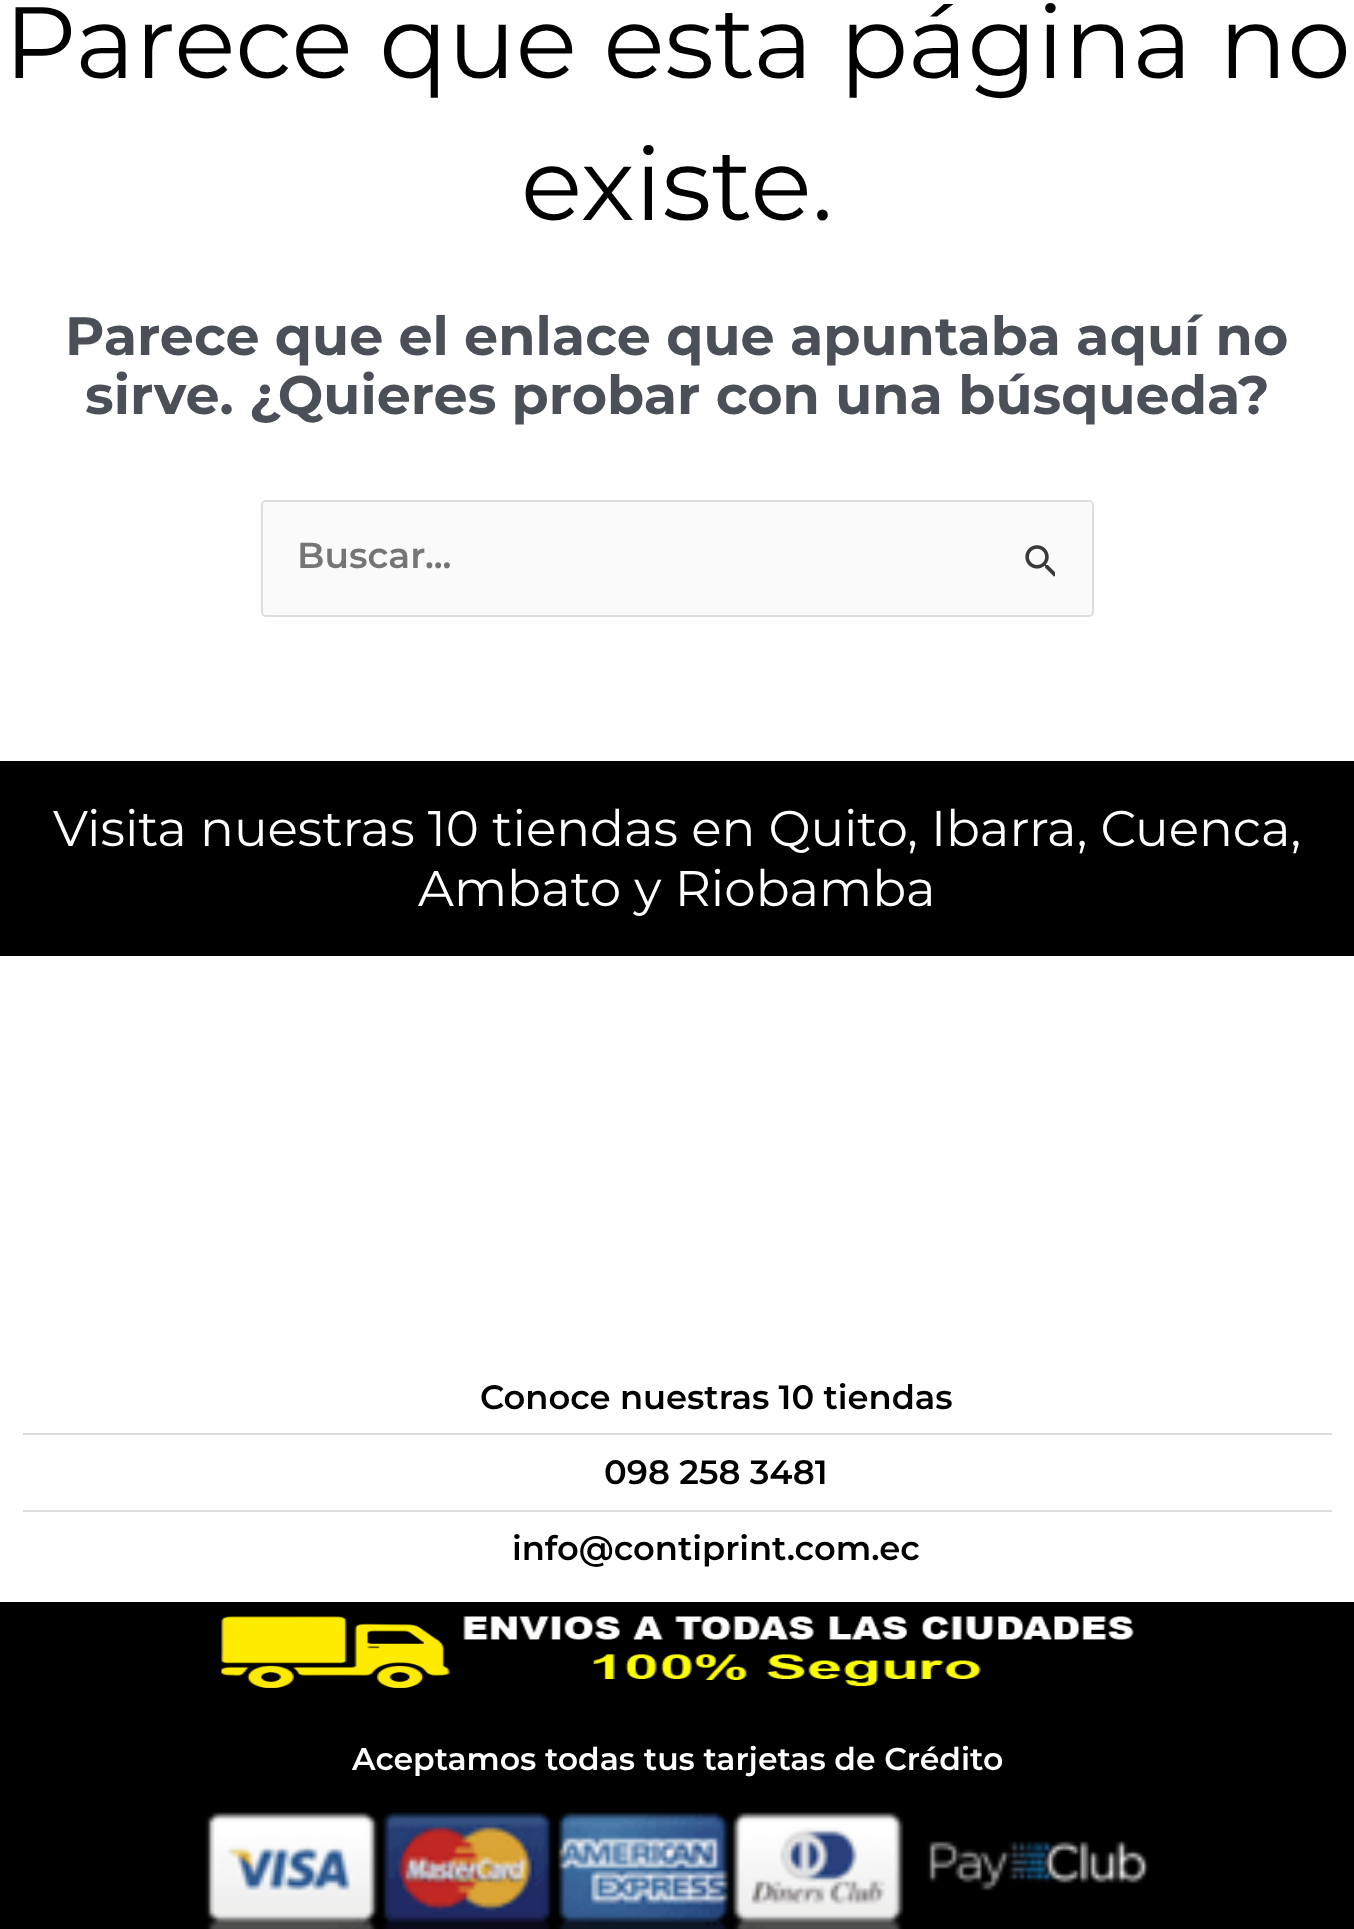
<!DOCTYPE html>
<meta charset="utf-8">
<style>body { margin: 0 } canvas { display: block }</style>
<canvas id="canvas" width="1354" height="1929"></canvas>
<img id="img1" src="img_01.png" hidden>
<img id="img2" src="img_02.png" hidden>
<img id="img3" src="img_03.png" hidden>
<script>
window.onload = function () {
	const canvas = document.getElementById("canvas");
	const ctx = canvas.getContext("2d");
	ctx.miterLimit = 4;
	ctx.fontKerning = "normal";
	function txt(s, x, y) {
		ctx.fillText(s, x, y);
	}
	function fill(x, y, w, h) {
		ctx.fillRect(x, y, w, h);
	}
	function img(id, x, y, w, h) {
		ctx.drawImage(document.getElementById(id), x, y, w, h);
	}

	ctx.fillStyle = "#FFFFFF";
	fill(0, 0, 1354, 1929);
	ctx.fillStyle = "#FAFAFA";
	ctx.beginPath();
	ctx.roundRect(262, 501, 831, 115, 4);
	ctx.fill();
	ctx.strokeStyle = "#DDDDDD";
	ctx.lineWidth = 2;
	ctx.stroke();
	img("img1", 1025, 545, 30, 32);
	ctx.fillStyle = "#000000";
	fill(0, 761, 1354, 195);
	ctx.fillStyle = "#DDDDDD";
	fill(23, 1433, 1309, 2);
	fill(23, 1510, 1309, 2);
	ctx.fillStyle = "#000000";
	fill(0, 1602, 1354, 327);
	img("img2", 221, 1616, 913, 72);
	img("img3", 205, 1812, 945, 117);
	ctx.font = "101.25px Montserrat";
	txt("Parece que esta página no", 4, 78);
	txt("existe.", 521, 220);
	ctx.font = "bold 54px Montserrat";
	ctx.fillStyle = "#4B4F58";
	txt("Parece que el enlace que apuntaba aquí no", 65, 355);
	txt("sirve. ¿Quieres probar con una búsqueda?", 85, 414);
	ctx.font = "600 36px Montserrat";
	ctx.fillStyle = "#757575";
	txt("Buscar...", 297, 568);
	ctx.font = "50.1px Montserrat";
	ctx.fillStyle = "#FFFFFF";
	txt("Visita nuestras 10 tiendas en Quito, Ibarra, Cuenca,", 53, 846);
	txt("Ambato y Riobamba", 418, 906);
	ctx.font = "600 33.75px Montserrat";
	ctx.fillStyle = "#000000";
	txt("Conoce nuestras 10 tiendas", 480, 1409);
	txt("098 258 3481", 604, 1484);
	txt("info@contiprint.com.ec", 512, 1560);
	ctx.font = "600 31.5px Montserrat";
	ctx.fillStyle = "#FFFFFF";
	txt("Aceptamos todas tus tarjetas de Crédito", 352, 1770);
};
</script>
